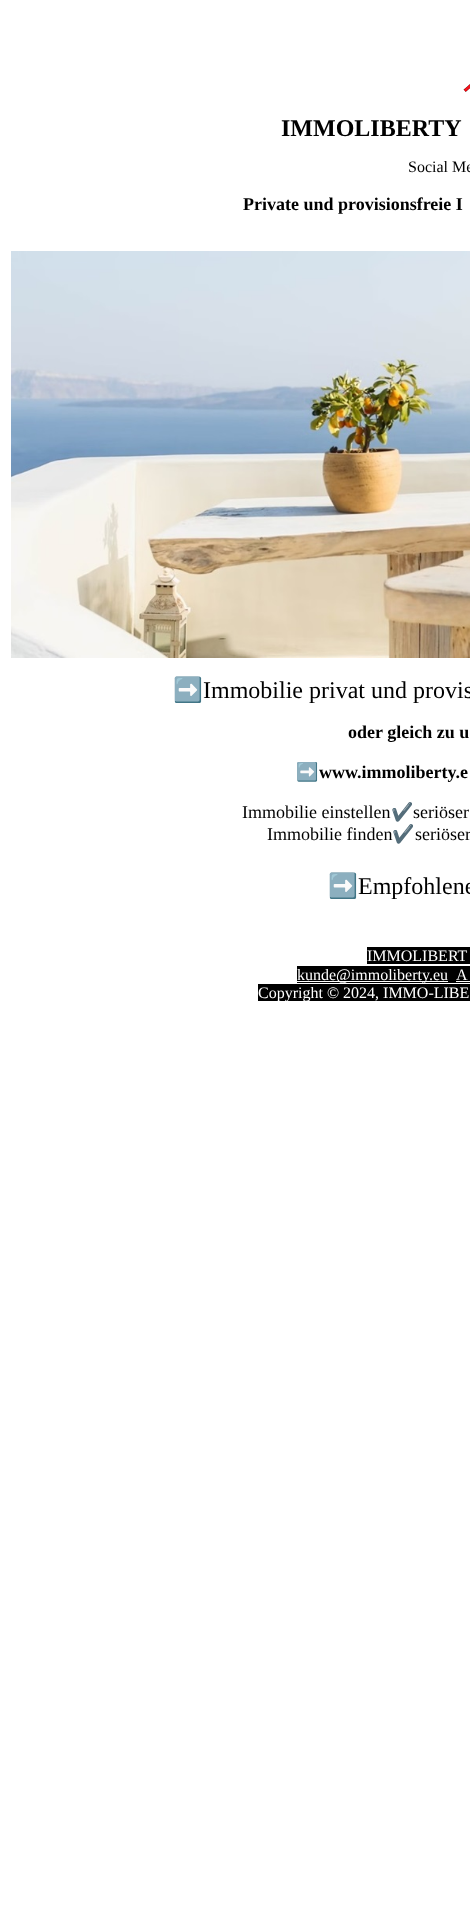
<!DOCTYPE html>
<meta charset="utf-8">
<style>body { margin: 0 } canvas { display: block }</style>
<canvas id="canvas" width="470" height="1911"></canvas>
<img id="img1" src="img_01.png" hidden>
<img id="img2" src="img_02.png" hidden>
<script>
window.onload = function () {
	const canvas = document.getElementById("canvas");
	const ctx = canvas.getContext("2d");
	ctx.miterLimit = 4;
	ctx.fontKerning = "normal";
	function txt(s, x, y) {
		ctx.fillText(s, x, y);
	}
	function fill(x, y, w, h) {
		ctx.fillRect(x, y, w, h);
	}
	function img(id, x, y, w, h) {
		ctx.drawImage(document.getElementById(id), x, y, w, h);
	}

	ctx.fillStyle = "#FFFFFF";
	fill(0, 0, 470, 1911);
	img("img1", 463, 84, 7, 8);
	img("img2", 11, 251, 459, 407);
	ctx.fillStyle = "#000000";
	fill(367, 947, 103, 17);
	fill(297, 966, 173, 17);
	ctx.fillStyle = "#FFFFFF";
	fill(297, 981, 151, 1);
	fill(456, 981, 14, 1);
	ctx.fillStyle = "#000000";
	fill(258, 984, 212, 17);
	ctx.font = "bold 24px Liberation Serif";
	txt("IMMOLIBERTY", 281, 136);
	ctx.font = "16px Liberation Serif";
	txt("Social Me", 408, 172);
	ctx.font = "bold 18px Liberation Serif";
	txt("Private und provisionsfreie I", 243, 210);
	ctx.font = "bold 24px Noto Color Emoji";
	txt("➡️", 173, 698);
	ctx.font = "24px Liberation Serif";
	txt("Immobilie privat und provis", 203, 698);
	ctx.font = "bold 18px Liberation Serif";
	txt("oder gleich zu u", 348, 738);
	ctx.font = "bold 18px Noto Color Emoji";
	txt("➡️", 296, 778);
	ctx.font = "bold 18px Liberation Serif";
	txt("www.immoliberty.e", 319, 778);
	ctx.font = "18px Liberation Serif";
	txt("Immobilie einstellen", 242, 818);
	ctx.font = "18px Noto Color Emoji";
	txt("✔️", 391, 818);
	ctx.font = "18px Liberation Serif";
	txt("seriöser", 413, 818);
	txt("Immobilie finden", 267, 840);
	ctx.font = "18px Noto Color Emoji";
	txt("✔️", 392, 840);
	ctx.font = "18px Liberation Serif";
	txt("seriöser", 415, 840);
	ctx.font = "24px Noto Color Emoji";
	txt("➡️", 328, 894);
	ctx.font = "24px Liberation Serif";
	txt("Empfohlene", 358, 894);
	ctx.font = "16px Liberation Serif";
	ctx.fillStyle = "#FFFFFF";
	txt("IMMOLIBERT", 367, 961);
	txt("kunde@immoliberty.eu", 297, 980);
	txt("A", 456, 980);
	txt("Copyright © 2024, IMMO-LIBE", 258, 998);
};
</script>
